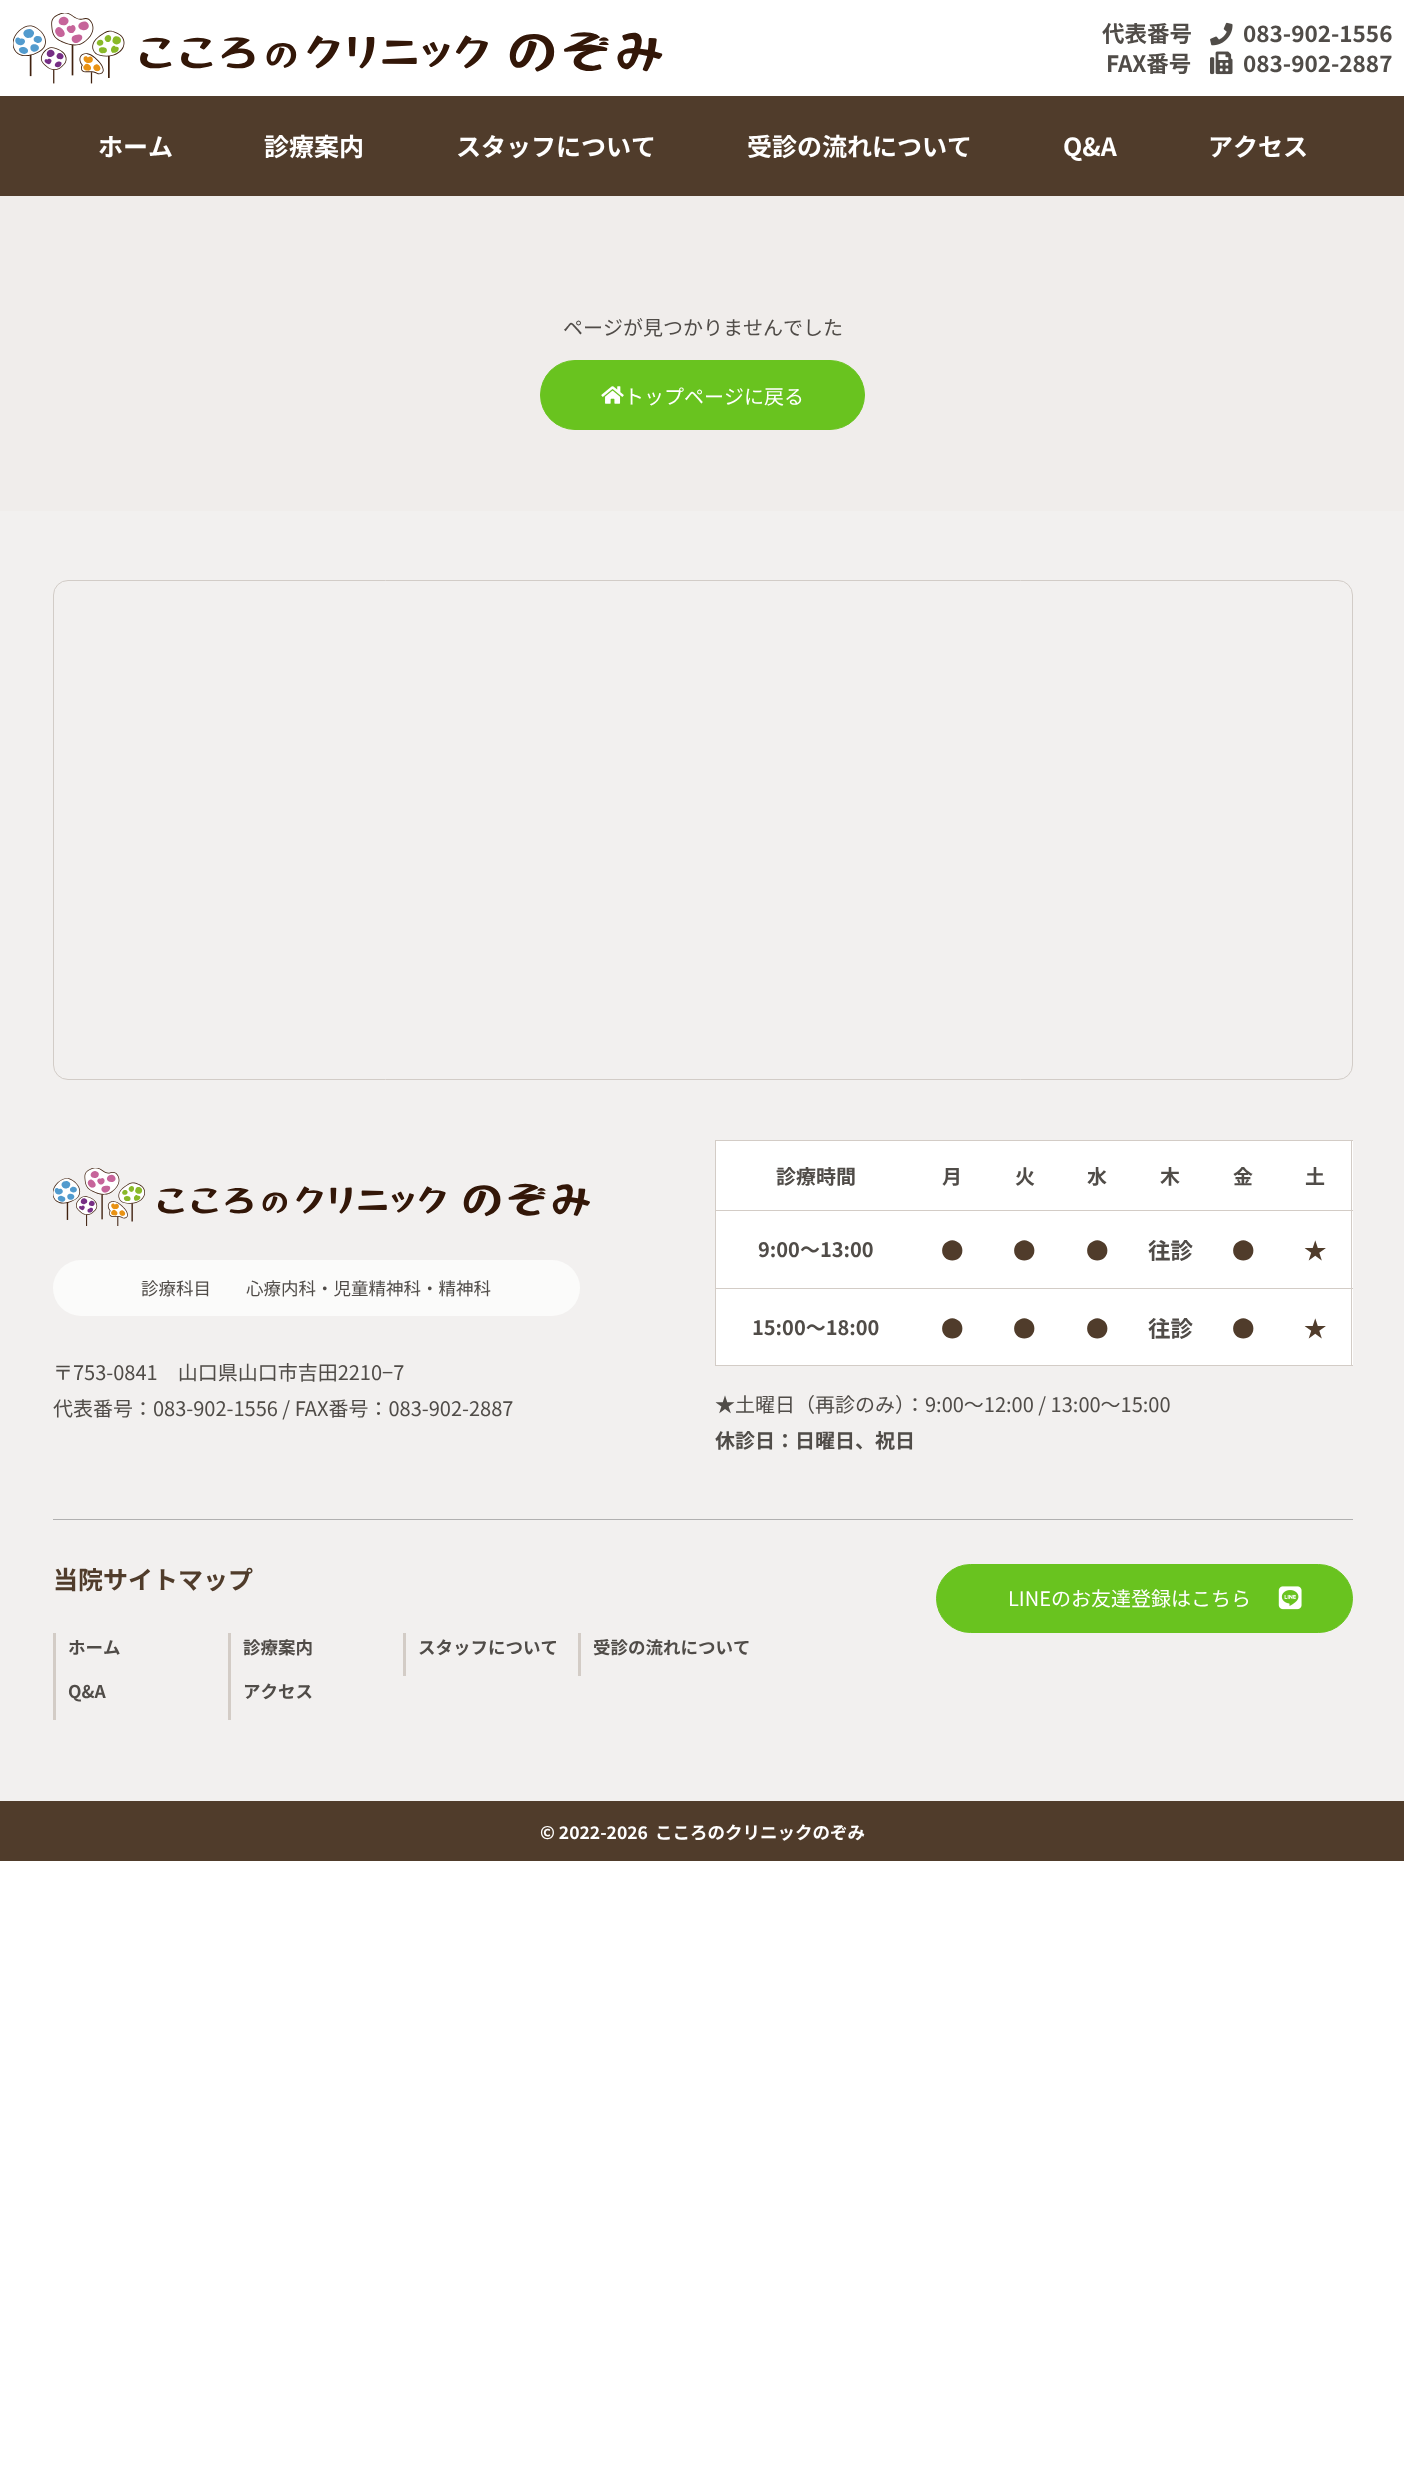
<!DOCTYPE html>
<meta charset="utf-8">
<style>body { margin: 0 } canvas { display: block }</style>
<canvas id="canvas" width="1404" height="2491"></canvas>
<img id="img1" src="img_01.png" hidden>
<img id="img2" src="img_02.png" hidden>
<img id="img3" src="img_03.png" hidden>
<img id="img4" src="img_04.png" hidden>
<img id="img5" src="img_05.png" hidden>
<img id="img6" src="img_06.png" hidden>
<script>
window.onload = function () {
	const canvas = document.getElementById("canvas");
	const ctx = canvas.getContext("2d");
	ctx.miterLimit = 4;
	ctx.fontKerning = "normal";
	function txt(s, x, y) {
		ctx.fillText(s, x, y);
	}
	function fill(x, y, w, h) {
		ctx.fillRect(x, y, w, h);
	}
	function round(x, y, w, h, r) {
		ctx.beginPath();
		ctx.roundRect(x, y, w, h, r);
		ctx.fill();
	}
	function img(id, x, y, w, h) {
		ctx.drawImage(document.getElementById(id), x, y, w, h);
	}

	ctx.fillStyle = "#FFFFFF";
	fill(0, 0, 1404, 2491);
	img("img1", 13, 13, 650, 71);
	img("img2", 1210, 22, 23, 24);
	img("img3", 1210, 51, 23, 24);
	ctx.fillStyle = "#503C2B";
	fill(0, 96, 1404, 100);
	ctx.fillStyle = "#F0EDEB";
	fill(0, 196, 1404, 315);
	ctx.fillStyle = "#69C31F";
	ctx.beginPath();
	ctx.roundRect(540.5, 360.5, 324, 69, 34.5);
	ctx.fill();
	ctx.strokeStyle = "#69C31F";
	ctx.stroke();
	img("img4", 601, 386, 23, 18);
	ctx.fillStyle = "#F2F0EF";
	fill(0, 511, 1404, 1290);
	ctx.beginPath();
	ctx.roundRect(53.5, 580.5, 1299, 499, 14.5);
	ctx.strokeStyle = "#D2CCC7";
	ctx.stroke();
	img("img5", 53, 1168, 537, 58);
	ctx.fillStyle = "#FBFBFA";
	round(53, 1260, 527, 56, 28);
	ctx.fillStyle = "#FFFFFF";
	fill(716, 1141, 637, 224);
	ctx.fillStyle = "#D3CCC6";
	fill(715, 1140, 638, 1);
	fill(1351, 1140, 1, 226);
	fill(715, 1365, 638, 1);
	fill(715, 1140, 1, 226);
	fill(715, 1210, 638, 1);
	fill(715, 1288, 638, 1);
	ctx.fillStyle = "#B1B0B0";
	fill(53, 1519, 1300, 1);
	ctx.fillStyle = "#D3CCC6";
	fill(53, 1633, 3, 87);
	fill(228, 1633, 3, 87);
	fill(403, 1633, 3, 43);
	fill(578, 1633, 3, 43);
	ctx.fillStyle = "#69C31F";
	ctx.beginPath();
	ctx.roundRect(936.5, 1564.5, 416, 68, 34);
	ctx.fill();
	ctx.strokeStyle = "#69C31F";
	ctx.stroke();
	img("img6", 1278, 1586, 24, 24);
	ctx.fillStyle = "#503C2B";
	fill(0, 1801, 1404, 60);
	ctx.font = "bold 22.5px Noto Sans JP";
	ctx.fillStyle = "#504C48";
	txt("代表番号", 1102, 42);
	txt("083-902-1556", 1243, 42);
	txt("FAX番号", 1106, 72);
	txt("083-902-2887", 1243, 72);
	ctx.font = "bold 25px Noto Sans JP";
	ctx.fillStyle = "#FFFFFF";
	txt("ホーム", 98, 156);
	txt("診療案内", 264, 156);
	txt("スタッフについて", 456, 156);
	txt("受診の流れについて", 747, 156);
	txt("Q&A", 1063, 156);
	txt("アクセス", 1208, 156);
	ctx.font = "20px Noto Sans JP";
	ctx.fillStyle = "#504C48";
	txt("ページが見つかりませんでした", 563, 335);
	ctx.fillStyle = "#FFFFFF";
	txt("トップページに戻る", 624, 404);
	ctx.font = "17.5px Noto Sans JP";
	ctx.fillStyle = "#504C48";
	txt("診療科目", 141, 1295);
	txt("心療内科・児童精神科・精神科", 246, 1295);
	ctx.font = "20px Noto Sans JP";
	txt("〒753-0841 山口県山口市吉田2210−7", 53, 1380);
	txt("代表番号：083-902-1556 / FAX番号：083-902-2887", 53, 1416);
	ctx.font = "bold 20px Noto Sans JP";
	txt("診療時間", 776, 1184);
	txt("月", 942, 1184);
	txt("火", 1015, 1184);
	txt("水", 1087, 1184);
	txt("木", 1160, 1184);
	txt("金", 1233, 1184);
	txt("土", 1305, 1184);
	txt("9:00〜13:00", 758, 1257);
	ctx.font = "bold 22.5px Noto Sans JP";
	ctx.fillStyle = "#503C2B";
	txt("●", 941, 1259);
	txt("●", 1013, 1259);
	txt("●", 1086, 1259);
	ctx.fillStyle = "#504C48";
	txt("往診", 1148, 1259);
	ctx.fillStyle = "#503C2B";
	txt("●", 1232, 1259);
	txt("★", 1304, 1259);
	ctx.font = "bold 20px Noto Sans JP";
	ctx.fillStyle = "#504C48";
	txt("15:00〜18:00", 752, 1335);
	ctx.font = "bold 22.5px Noto Sans JP";
	ctx.fillStyle = "#503C2B";
	txt("●", 941, 1337);
	txt("●", 1013, 1337);
	txt("●", 1086, 1337);
	ctx.fillStyle = "#504C48";
	txt("往診", 1148, 1337);
	ctx.fillStyle = "#503C2B";
	txt("●", 1232, 1337);
	txt("★", 1304, 1337);
	ctx.font = "20px Noto Sans JP";
	ctx.fillStyle = "#504C48";
	txt("★土曜日（再診のみ）：9:00～12:00 / 13:00～15:00", 715, 1412);
	ctx.font = "bold 20px Noto Sans JP";
	txt("休診日：日曜日、祝日", 715, 1448);
	ctx.font = "bold 25px Noto Sans JP";
	ctx.fillStyle = "#503C2B";
	txt("当院サイトマップ", 53, 1589);
	ctx.font = "bold 17.5px Noto Sans JP";
	ctx.fillStyle = "#504C48";
	txt("ホーム", 68, 1654);
	txt("診療案内", 243, 1654);
	txt("スタッフについて", 418, 1654);
	txt("受診の流れについて", 593, 1654);
	txt("Q&A", 68, 1698);
	txt("アクセス", 243, 1698);
	ctx.font = "20px Noto Sans JP";
	ctx.fillStyle = "#FFFFFF";
	txt("LINEのお友達登録はこちら", 1008, 1606);
	ctx.font = "bold 17.5px Noto Sans JP";
	txt("© 2022-2026", 540, 1839);
	txt("こころのクリニックのぞみ", 655, 1839);
};
</script>
